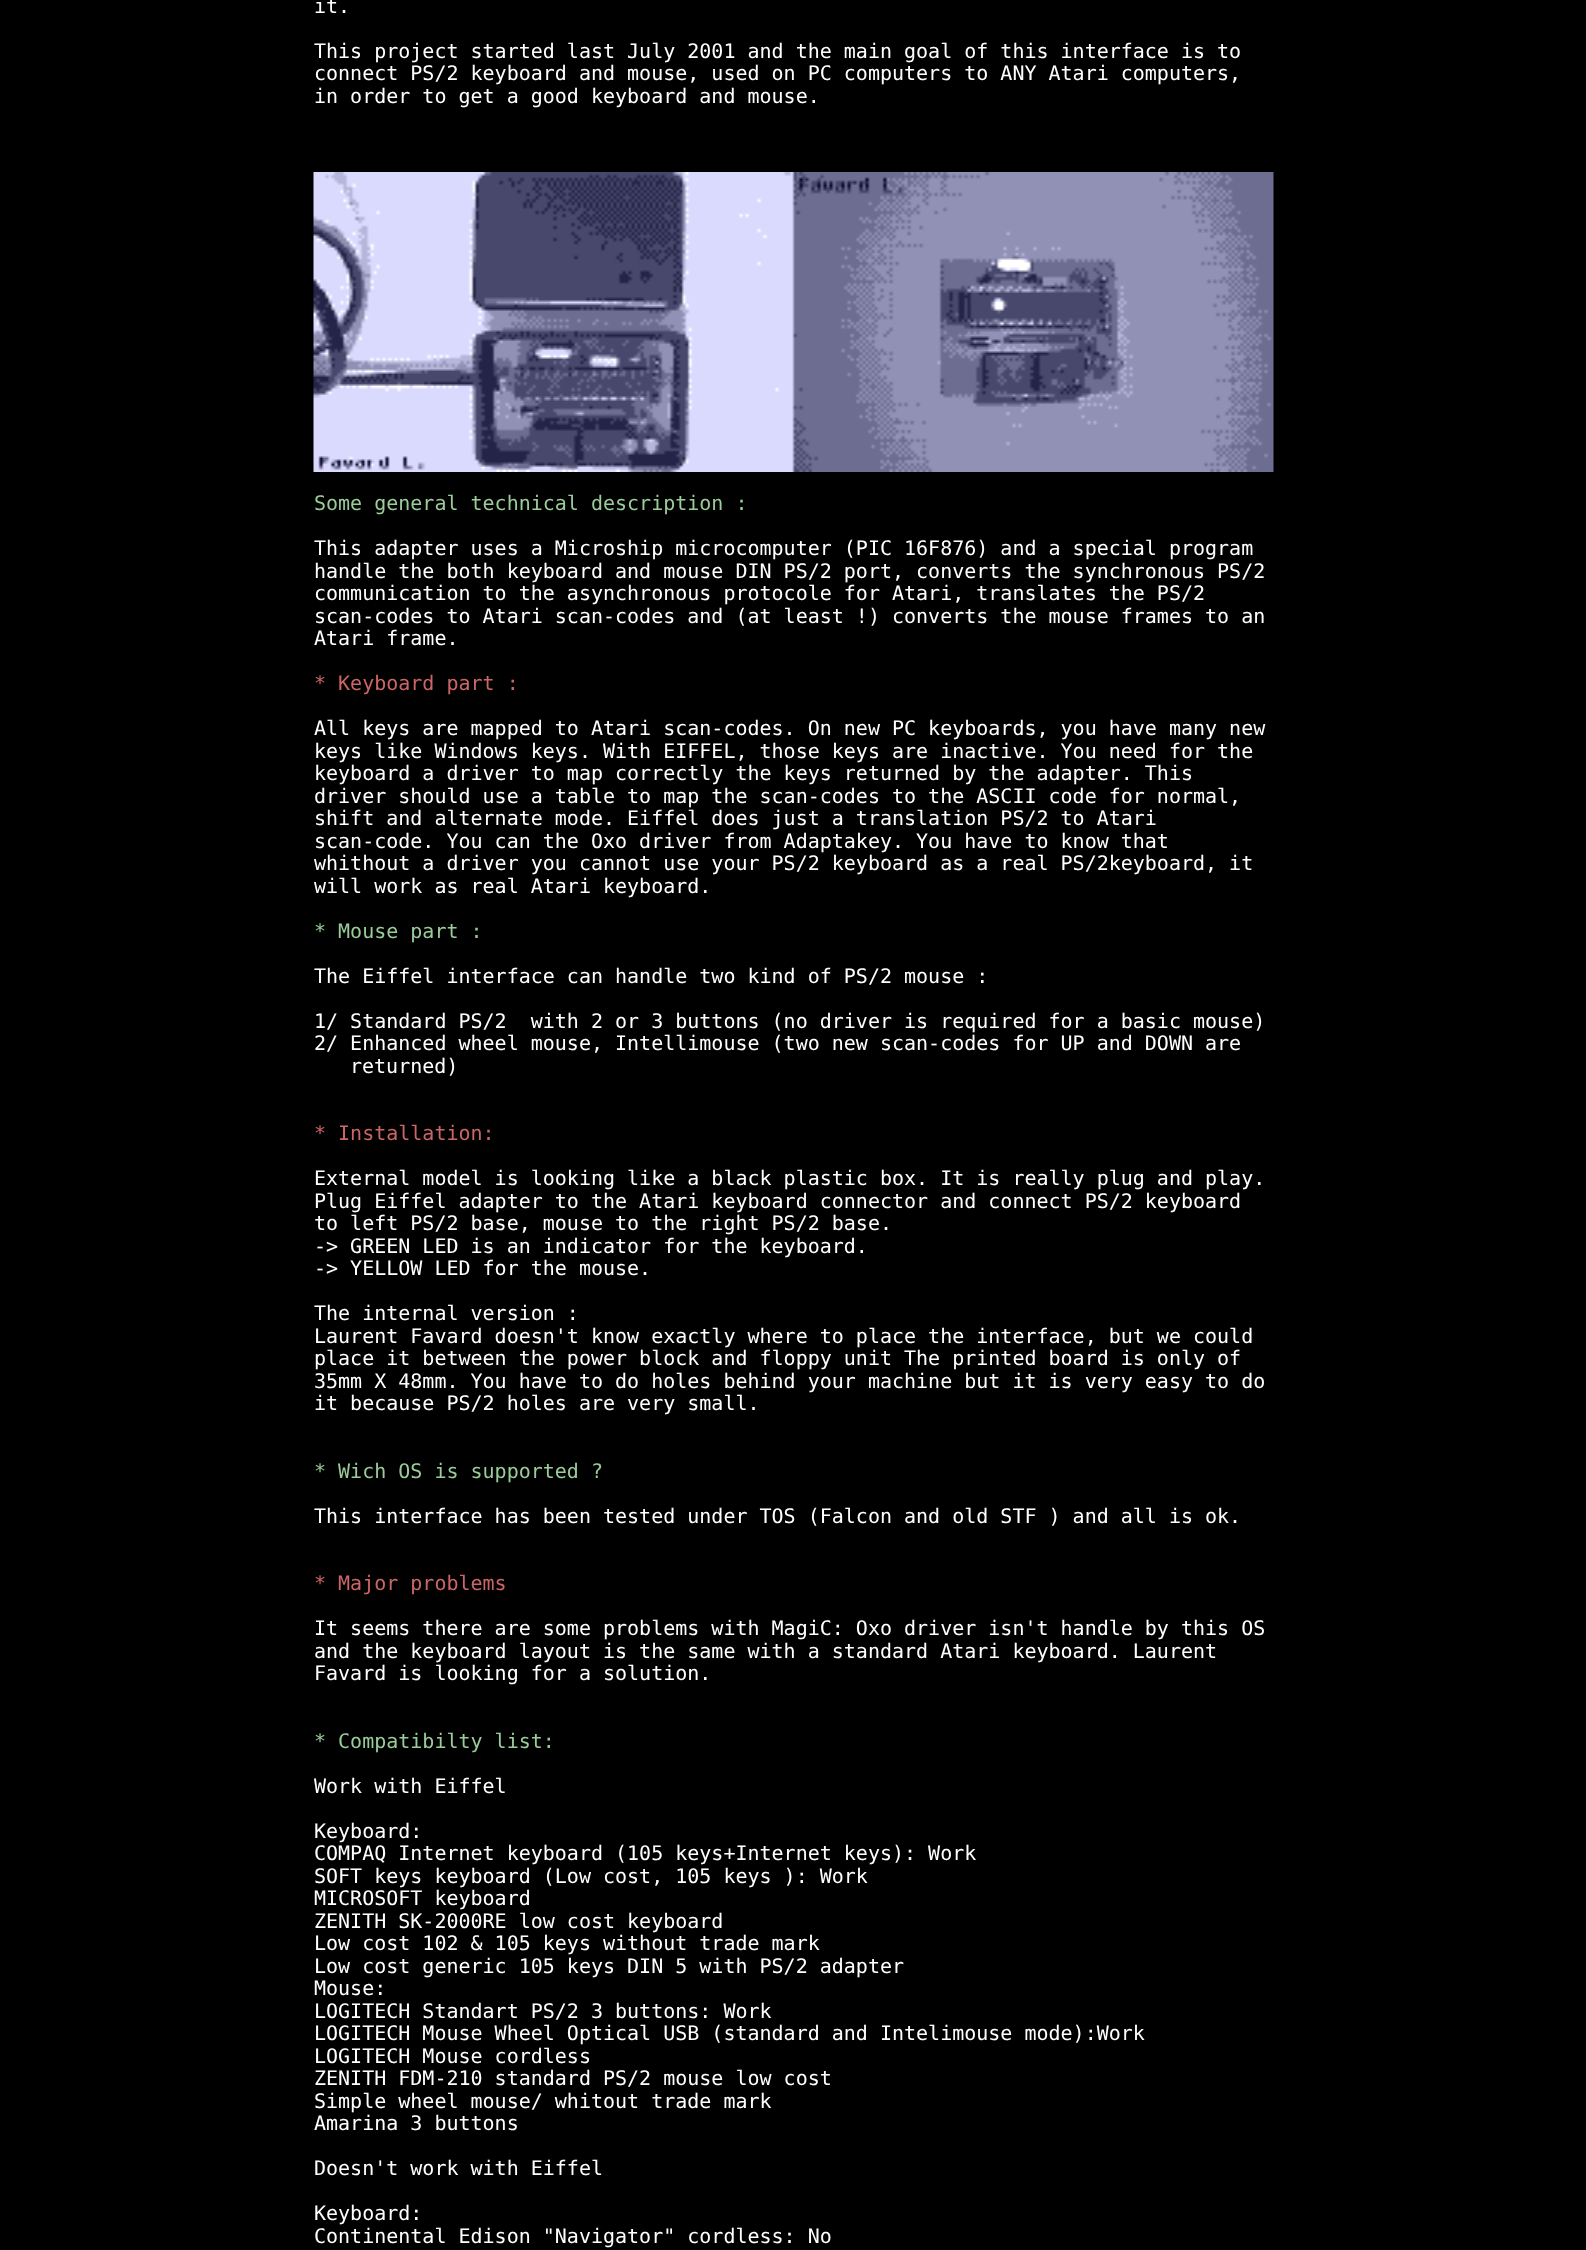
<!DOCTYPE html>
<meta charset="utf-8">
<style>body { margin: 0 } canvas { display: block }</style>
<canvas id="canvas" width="1586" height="2250"></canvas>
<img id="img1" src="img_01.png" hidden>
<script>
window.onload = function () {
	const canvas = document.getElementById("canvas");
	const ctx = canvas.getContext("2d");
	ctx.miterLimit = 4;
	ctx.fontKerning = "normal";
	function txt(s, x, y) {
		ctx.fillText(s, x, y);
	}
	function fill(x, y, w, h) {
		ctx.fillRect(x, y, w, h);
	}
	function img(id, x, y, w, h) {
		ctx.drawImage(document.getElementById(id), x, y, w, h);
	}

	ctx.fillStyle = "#000000";
	fill(0, 0, 1586, 2250);
	img("img1", 313, 172, 961, 300);
	ctx.font = "20px DejaVu Sans Mono";
	ctx.fillStyle = "#FFFFFF";
	txt("it.", 314, 13);
	txt("This project started last July 2001 and the main goal of this interface is to", 314, 58);
	txt("connect PS/2 keyboard and mouse, used on PC computers to ANY Atari computers,", 314, 80);
	txt("in order to get a good keyboard and mouse.", 314, 103);
	ctx.fillStyle = "#99CC99";
	txt("Some general technical description :", 314, 510);
	ctx.fillStyle = "#FFFFFF";
	txt("This adapter uses a Microship microcomputer (PIC 16F876) and a special program", 314, 555);
	txt("handle the both keyboard and mouse DIN PS/2 port, converts the synchronous PS/2", 314, 578);
	txt("communication to the asynchronous protocole for Atari, translates the PS/2", 314, 600);
	txt("scan-codes to Atari scan-codes and (at least !) converts the mouse frames to an", 314, 623);
	txt("Atari frame.", 314, 645);
	ctx.fillStyle = "#CC6666";
	txt("* Keyboard part :", 314, 690);
	ctx.fillStyle = "#FFFFFF";
	txt("All keys are mapped to Atari scan-codes. On new PC keyboards, you have many new", 314, 735);
	txt("keys like Windows keys. With EIFFEL, those keys are inactive. You need for the", 314, 758);
	txt("keyboard a driver to map correctly the keys returned by the adapter. This", 314, 780);
	txt("driver should use a table to map the scan-codes to the ASCII code for normal,", 314, 803);
	txt("shift and alternate mode. Eiffel does just a translation PS/2 to Atari", 314, 825);
	txt("scan-code. You can the Oxo driver from Adaptakey. You have to know that", 314, 848);
	txt("whithout a driver you cannot use your PS/2 keyboard as a real PS/2keyboard, it", 314, 870);
	txt("will work as real Atari keyboard.", 314, 893);
	ctx.fillStyle = "#99CC99";
	txt("* Mouse part :", 314, 938);
	ctx.fillStyle = "#FFFFFF";
	txt("The Eiffel interface can handle two kind of PS/2 mouse :", 314, 983);
	txt("1/ Standard PS/2  with 2 or 3 buttons (no driver is required for a basic mouse)", 314, 1028);
	txt("2/ Enhanced wheel mouse, Intellimouse (two new scan-codes for UP and DOWN are", 314, 1050);
	txt("returned)", 350, 1073);
	ctx.fillStyle = "#CC6666";
	txt("* Installation:", 314, 1140);
	ctx.fillStyle = "#FFFFFF";
	txt("External model is looking like a black plastic box. It is really plug and play.", 314, 1185);
	txt("Plug Eiffel adapter to the Atari keyboard connector and connect PS/2 keyboard", 314, 1208);
	txt("to left PS/2 base, mouse to the right PS/2 base.", 314, 1230);
	txt("-> GREEN LED is an indicator for the keyboard.", 314, 1253);
	txt("-> YELLOW LED for the mouse.", 314, 1275);
	txt("The internal version :", 314, 1320);
	txt("Laurent Favard doesn't know exactly where to place the interface, but we could", 314, 1343);
	txt("place it between the power block and floppy unit The printed board is only of", 314, 1365);
	txt("35mm X 48mm. You have to do holes behind your machine but it is very easy to do", 314, 1388);
	txt("it because PS/2 holes are very small.", 314, 1410);
	ctx.fillStyle = "#99CC99";
	txt("* Wich OS is supported ?", 314, 1478);
	ctx.fillStyle = "#FFFFFF";
	txt("This interface has been tested under TOS (Falcon and old STF ) and all is ok.", 314, 1523);
	ctx.fillStyle = "#CC6666";
	txt("* Major problems", 314, 1590);
	ctx.fillStyle = "#FFFFFF";
	txt("It seems there are some problems with MagiC: Oxo driver isn't handle by this OS", 314, 1635);
	txt("and the keyboard layout is the same with a standard Atari keyboard. Laurent", 314, 1658);
	txt("Favard is looking for a solution.", 314, 1680);
	ctx.fillStyle = "#99CC99";
	txt("* Compatibilty list:", 314, 1748);
	ctx.fillStyle = "#FFFFFF";
	txt("Work with Eiffel", 314, 1793);
	txt("Keyboard:", 314, 1838);
	txt("COMPAQ Internet keyboard (105 keys+Internet keys): Work", 314, 1860);
	txt("SOFT keys keyboard (Low cost, 105 keys ): Work", 314, 1883);
	txt("MICROSOFT keyboard", 314, 1905);
	txt("ZENITH SK-2000RE low cost keyboard", 314, 1928);
	txt("Low cost 102 & 105 keys without trade mark", 314, 1950);
	txt("Low cost generic 105 keys DIN 5 with PS/2 adapter", 314, 1973);
	txt("Mouse:", 314, 1995);
	txt("LOGITECH Standart PS/2 3 buttons: Work", 314, 2018);
	txt("LOGITECH Mouse Wheel Optical USB (standard and Intelimouse mode):Work", 314, 2040);
	txt("LOGITECH Mouse cordless", 314, 2063);
	txt("ZENITH FDM-210 standard PS/2 mouse low cost", 314, 2085);
	txt("Simple wheel mouse/ whitout trade mark", 314, 2108);
	txt("Amarina 3 buttons", 314, 2130);
	txt("Doesn't work with Eiffel", 314, 2175);
	txt("Keyboard:", 314, 2220);
	txt("Continental Edison \"Navigator\" cordless: No", 314, 2243);
};
</script>
